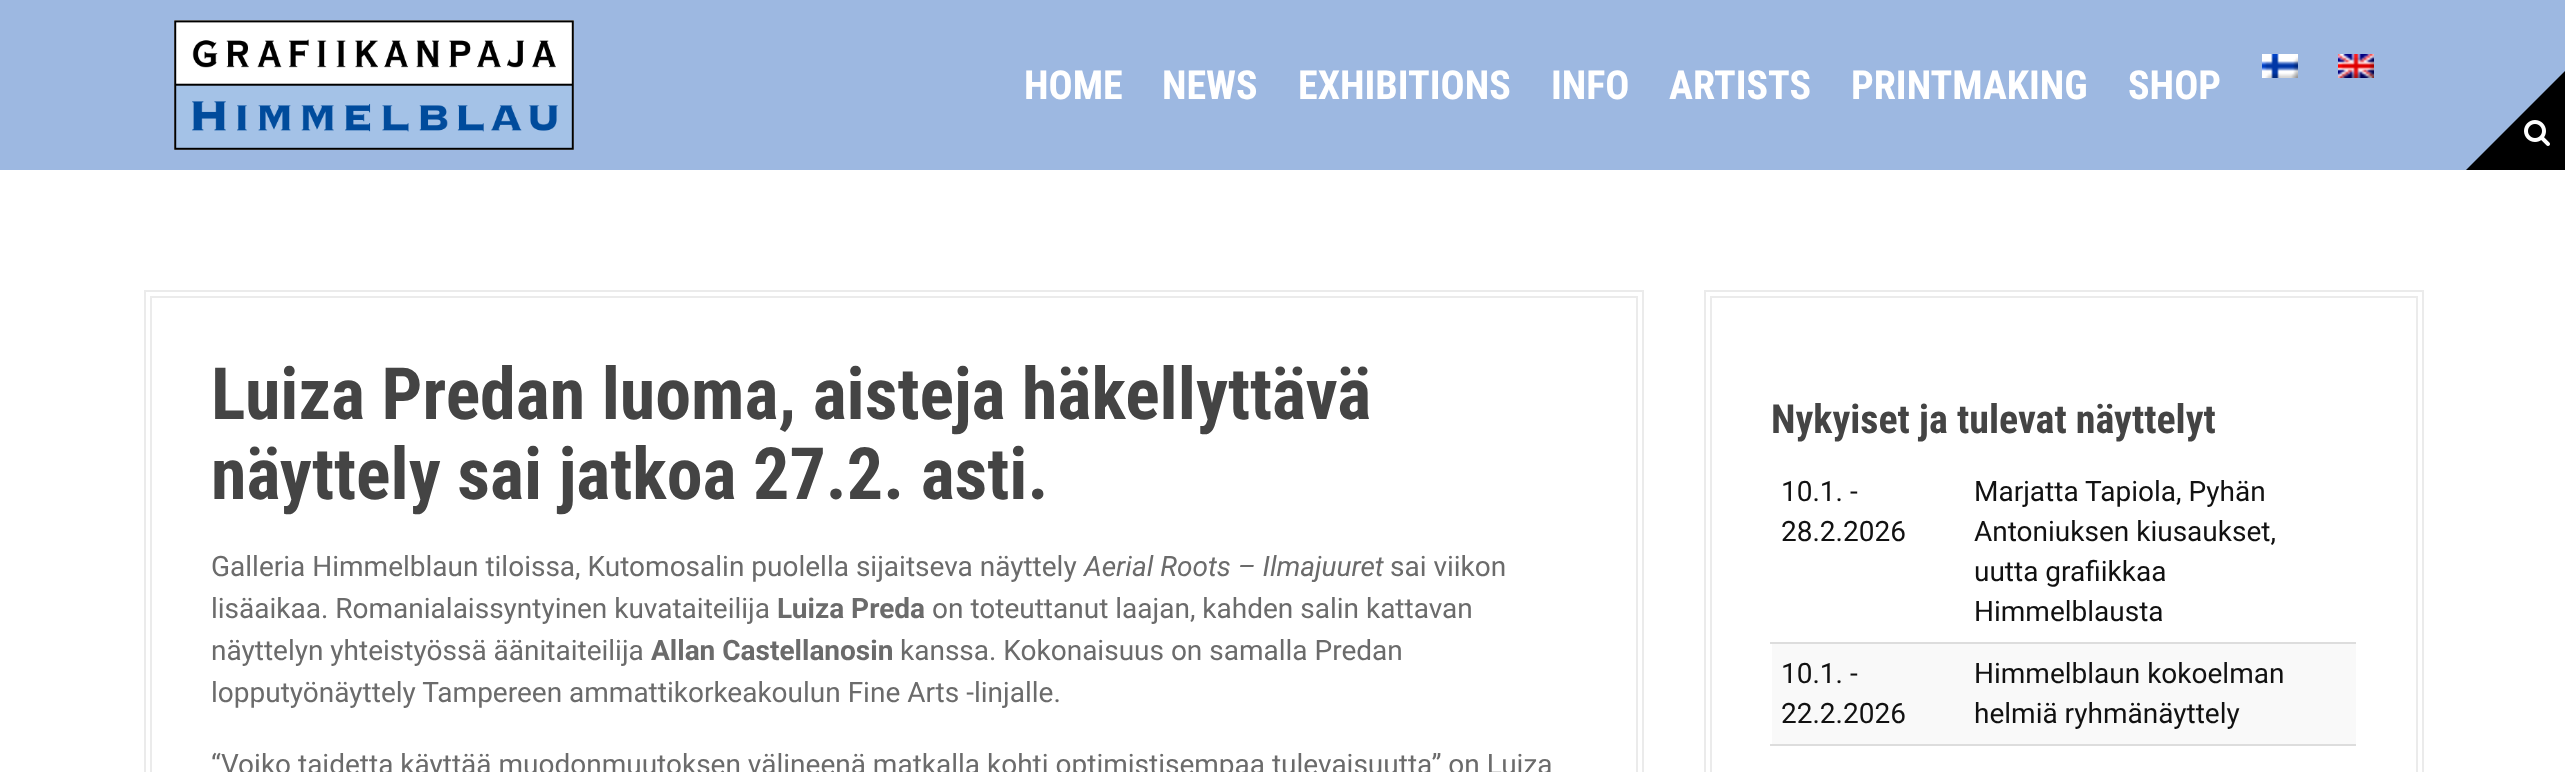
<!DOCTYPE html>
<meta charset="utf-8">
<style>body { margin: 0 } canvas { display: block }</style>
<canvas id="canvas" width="2565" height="772"></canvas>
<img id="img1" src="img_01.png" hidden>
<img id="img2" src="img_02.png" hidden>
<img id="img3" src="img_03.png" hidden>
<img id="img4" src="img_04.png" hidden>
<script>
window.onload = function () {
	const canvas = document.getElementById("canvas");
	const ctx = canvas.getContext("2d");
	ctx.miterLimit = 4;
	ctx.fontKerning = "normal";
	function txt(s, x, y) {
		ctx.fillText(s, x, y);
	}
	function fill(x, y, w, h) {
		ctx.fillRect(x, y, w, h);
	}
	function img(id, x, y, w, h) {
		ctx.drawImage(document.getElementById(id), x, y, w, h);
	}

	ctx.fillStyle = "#FFFFFF";
	fill(0, 0, 2565, 772);
	ctx.fillStyle = "#9DB8E1";
	fill(0, 0, 2565, 170);
	img("img1", 174, 20, 400, 130);
	img("img2", 2262, 54, 36, 24);
	img("img3", 2338, 54, 36, 24);
	ctx.fillStyle = "#000000";
	ctx.beginPath();
	ctx.moveTo(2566, 70);
	ctx.lineTo(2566, 170);
	ctx.lineTo(2466, 170);
	ctx.closePath();
	ctx.fill();
	img("img4", 2524, 120, 26, 26);
	ctx.strokeStyle = "#EBEBEB";
	ctx.lineWidth = 2;
	ctx.strokeRect(145, 291, 1498, 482);
	ctx.strokeRect(151, 297, 1486, 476);
	ctx.strokeRect(1705, 291, 718, 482);
	ctx.strokeRect(1711, 297, 706, 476);
	ctx.fillStyle = "#F9F9F9";
	fill(1772, 644, 584, 100);
	ctx.fillStyle = "#DDDDDD";
	fill(1770, 642, 586, 2);
	fill(1770, 744, 586, 2);
	ctx.font = "bold 40px Roboto Condensed";
	ctx.fillStyle = "#FFFFFF";
	txt("HOME", 1024, 99);
	txt("NEWS", 1162, 99);
	txt("EXHIBITIONS", 1298, 99);
	txt("INFO", 1551, 99);
	txt("ARTISTS", 1669, 99);
	txt("PRINTMAKING", 1851, 99);
	txt("SHOP", 2128, 99);
	ctx.font = "bold 72px Roboto Condensed";
	ctx.fillStyle = "#444444";
	txt("Luiza Predan luoma, aisteja häkellyttävä", 211, 419);
	txt("näyttely sai jatkoa 27.2. asti.", 211, 499);
	ctx.font = "28px Roboto";
	ctx.fillStyle = "#6B6B6B";
	txt("Galleria Himmelblaun tiloissa, Kutomosalin puolella sijaitseva näyttely", 211, 576);
	ctx.font = "italic 28px Roboto";
	txt("Aerial Roots – Ilmajuuret", 1084, 576);
	ctx.font = "28px Roboto";
	txt("sai viikon", 1390, 576);
	txt("lisäaikaa. Romanialaissyntyinen kuvataiteilija", 211, 618);
	ctx.font = "bold 28px Roboto";
	txt("Luiza Preda", 777, 618);
	ctx.font = "28px Roboto";
	txt("on toteuttanut laajan, kahden salin kattavan", 932, 618);
	txt("näyttelyn yhteistyössä äänitaiteilija", 211, 660);
	ctx.font = "bold 28px Roboto";
	txt("Allan Castellanosin", 651, 660);
	ctx.font = "28px Roboto";
	txt("kanssa. Kokonaisuus on samalla Predan", 900, 660);
	txt("lopputyönäyttely Tampereen ammattikorkeakoulun Fine Arts -linjalle.", 211, 702);
	txt("“Voiko taidetta käyttää muodonmuutoksen välineenä matkalla kohti optimistisempaa tulevaisuutta” on Luiza", 211, 774);
	ctx.font = "bold 40px Roboto Condensed";
	ctx.fillStyle = "#444444";
	txt("Nykyiset ja tulevat näyttelyt", 1771, 433);
	ctx.font = "28px Roboto";
	ctx.fillStyle = "#111111";
	txt("10.1. -", 1781, 501);
	txt("28.2.2026", 1781, 541);
	txt("Marjatta Tapiola, Pyhän", 1974, 501);
	txt("Antoniuksen kiusaukset,", 1974, 541);
	txt("uutta grafiikkaa", 1974, 581);
	txt("Himmelblausta", 1974, 621);
	txt("10.1. -", 1781, 683);
	txt("22.2.2026", 1781, 723);
	txt("Himmelblaun kokoelman", 1974, 683);
	txt("helmiä ryhmänäyttely", 1974, 723);
};
</script>
